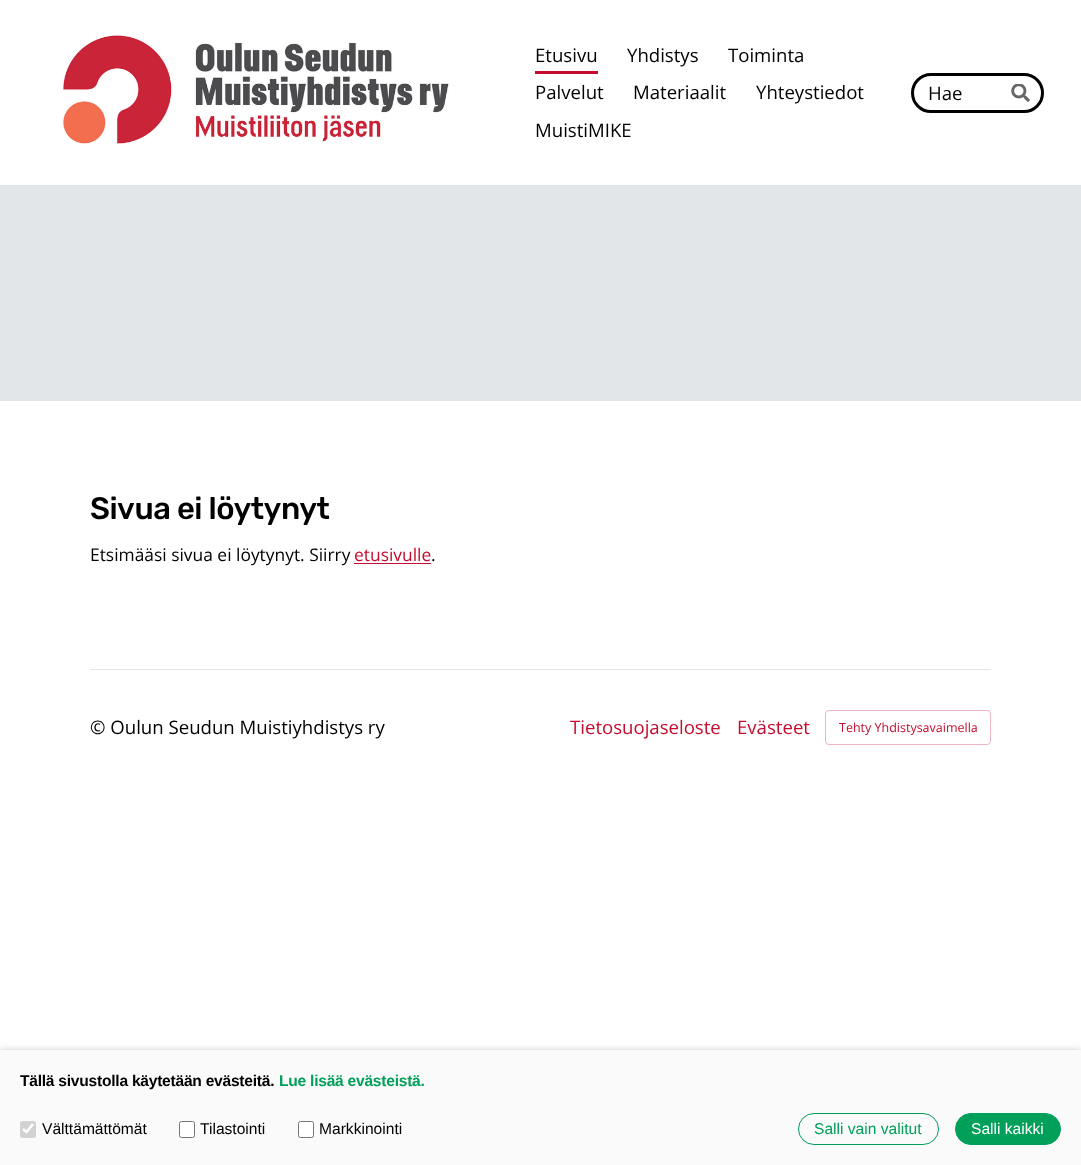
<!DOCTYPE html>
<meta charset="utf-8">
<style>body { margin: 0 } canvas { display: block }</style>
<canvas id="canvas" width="1081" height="1165"></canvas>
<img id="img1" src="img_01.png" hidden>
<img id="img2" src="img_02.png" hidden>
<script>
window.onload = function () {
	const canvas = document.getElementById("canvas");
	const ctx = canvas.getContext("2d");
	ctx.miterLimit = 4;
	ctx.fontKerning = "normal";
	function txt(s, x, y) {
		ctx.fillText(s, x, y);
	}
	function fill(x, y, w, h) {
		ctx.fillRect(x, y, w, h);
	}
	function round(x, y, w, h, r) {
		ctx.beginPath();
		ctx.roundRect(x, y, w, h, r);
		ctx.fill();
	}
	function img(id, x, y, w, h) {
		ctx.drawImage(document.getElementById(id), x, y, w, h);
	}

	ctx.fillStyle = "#FFFFFF";
	fill(0, 0, 1081, 1165);
	ctx.fillStyle = "#E2E6E9";
	fill(0, 185, 1081, 216);
	img("img1", 63, 35, 386, 109);
	ctx.fillStyle = "#C50C2E";
	fill(535, 71, 63, 3);
	ctx.beginPath();
	ctx.roundRect(912.5, 74.5, 130, 37, 18.5);
	ctx.strokeStyle = "#000000";
	ctx.lineWidth = 3;
	ctx.stroke();
	img("img2", 1011, 84, 19, 18);
	fill(354, 563, 77, 1);
	ctx.fillStyle = "#E6E6E6";
	fill(90, 669, 901, 1);
	ctx.beginPath();
	ctx.roundRect(825.5, 710.5, 165, 34, 3.5);
	ctx.strokeStyle = "#EEB6C0";
	ctx.lineWidth = 1;
	ctx.stroke();
	ctx.fillStyle = "rgba(0, 0, 0, 0.2)";
	ctx.filter = "blur(3px)";
	ctx.beginPath();
	ctx.rect(0, 1050, 1081, 115);
	ctx.fill();
	ctx.filter = "none";
	ctx.fillStyle = "#FAFAFA";
	fill(0, 1050, 1081, 115);
	ctx.fillStyle = "#D2D2D2";
	round(20, 1121, 16, 17, 2.5);
	ctx.beginPath();
	ctx.moveTo(23, 1129);
	ctx.lineTo(26.5, 1132);
	ctx.lineTo(33, 1124);
	ctx.strokeStyle = "#FFFFFF";
	ctx.lineWidth = 2.6;
	ctx.stroke();
	ctx.fillStyle = "#FFFFFF";
	ctx.beginPath();
	ctx.roundRect(179.5, 1121.5, 15, 16, 2);
	ctx.fill();
	ctx.strokeStyle = "#767676";
	ctx.lineWidth = 1;
	ctx.stroke();
	ctx.beginPath();
	ctx.roundRect(298.5, 1121.5, 15, 16, 2);
	ctx.fill();
	ctx.stroke();
	ctx.beginPath();
	ctx.roundRect(798.5, 1113.5, 140, 31, 15.5);
	ctx.strokeStyle = "#00A05A";
	ctx.stroke();
	ctx.fillStyle = "#00A05A";
	ctx.beginPath();
	ctx.roundRect(955.5, 1113.5, 105, 31, 15.5);
	ctx.fill();
	ctx.stroke();
	ctx.font = "18.6px Open Sans";
	ctx.fillStyle = "#000000";
	txt("Etusivu", 535, 62);
	txt("Yhdistys", 627, 62);
	txt("Toiminta", 728, 62);
	txt("Palvelut", 535, 99);
	txt("Materiaalit", 633, 99);
	txt("Yhteystiedot", 756, 99);
	txt("MuistiMIKE", 535, 137);
	txt("Hae", 928, 100);
	ctx.letterSpacing = "-0.5px";
	ctx.font = "500 31px Rubik";
	txt("Sivua ei löytynyt", 90, 519);
	ctx.letterSpacing = "0px";
	ctx.font = "17.4px Open Sans";
	txt("Etsimääsi sivua ei löytynyt. Siirry", 90, 561);
	ctx.fillStyle = "#C50C2E";
	txt("etusivulle", 354, 561);
	ctx.fillStyle = "#000000";
	txt(".", 431, 561);
	ctx.font = "18.6px Open Sans";
	txt("© Oulun Seudun Muistiyhdistys ry", 90, 734);
	ctx.fillStyle = "#C50C2E";
	txt("Tietosuojaseloste", 570, 734);
	txt("Evästeet", 737, 734);
	ctx.font = "12.5px Open Sans";
	txt("Tehty Yhdistysavaimella", 839, 732);
	ctx.letterSpacing = "-0.25px";
	ctx.font = "bold 15.6px Liberation Sans";
	ctx.fillStyle = "#000000";
	txt("Tällä sivustolla käytetään evästeitä.", 20, 1086);
	ctx.fillStyle = "#00A05A";
	txt("Lue lisää evästeistä.", 279, 1086);
	ctx.letterSpacing = "0px";
	ctx.font = "15.6px Liberation Sans";
	ctx.fillStyle = "#000000";
	txt("Välttämättömät", 42, 1134);
	txt("Tilastointi", 200, 1134);
	txt("Markkinointi", 319, 1134);
	ctx.fillStyle = "#00A05A";
	txt("Salli vain valitut", 814, 1134);
	ctx.fillStyle = "#FFFFFF";
	txt("Salli kaikki", 971, 1134);
};
</script>
